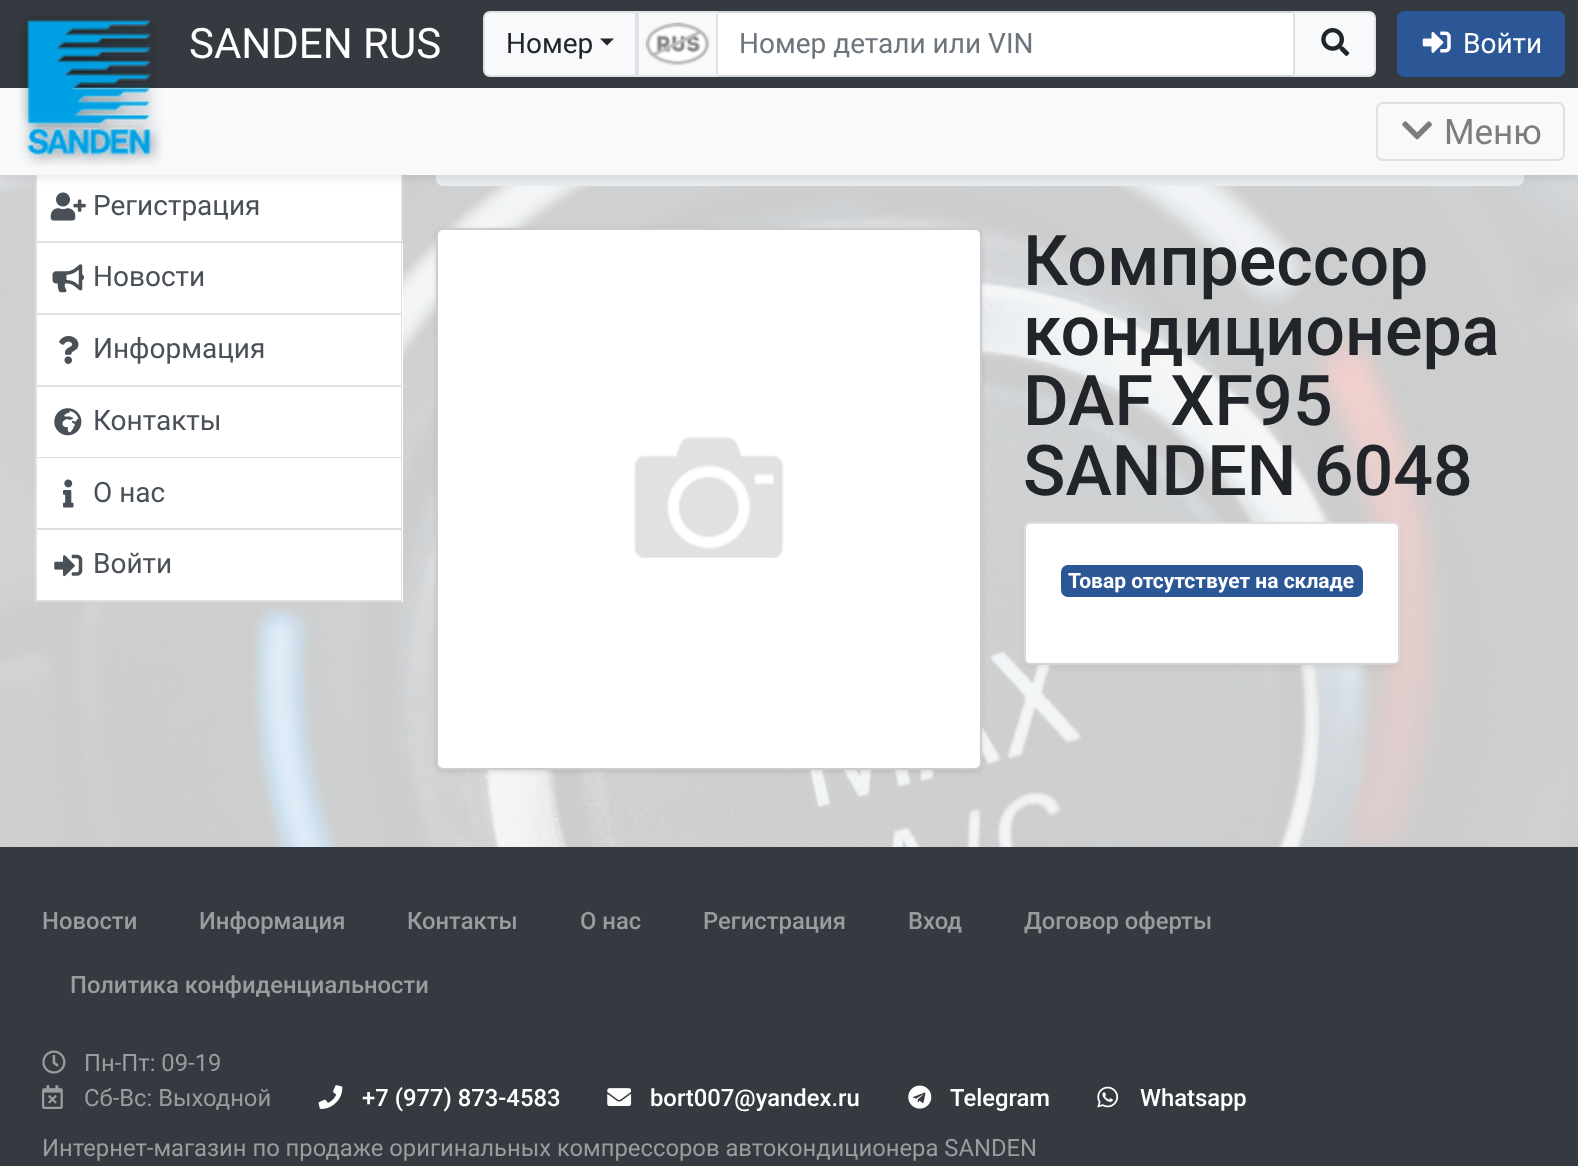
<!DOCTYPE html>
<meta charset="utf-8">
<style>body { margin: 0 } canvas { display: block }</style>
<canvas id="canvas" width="1578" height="1166"></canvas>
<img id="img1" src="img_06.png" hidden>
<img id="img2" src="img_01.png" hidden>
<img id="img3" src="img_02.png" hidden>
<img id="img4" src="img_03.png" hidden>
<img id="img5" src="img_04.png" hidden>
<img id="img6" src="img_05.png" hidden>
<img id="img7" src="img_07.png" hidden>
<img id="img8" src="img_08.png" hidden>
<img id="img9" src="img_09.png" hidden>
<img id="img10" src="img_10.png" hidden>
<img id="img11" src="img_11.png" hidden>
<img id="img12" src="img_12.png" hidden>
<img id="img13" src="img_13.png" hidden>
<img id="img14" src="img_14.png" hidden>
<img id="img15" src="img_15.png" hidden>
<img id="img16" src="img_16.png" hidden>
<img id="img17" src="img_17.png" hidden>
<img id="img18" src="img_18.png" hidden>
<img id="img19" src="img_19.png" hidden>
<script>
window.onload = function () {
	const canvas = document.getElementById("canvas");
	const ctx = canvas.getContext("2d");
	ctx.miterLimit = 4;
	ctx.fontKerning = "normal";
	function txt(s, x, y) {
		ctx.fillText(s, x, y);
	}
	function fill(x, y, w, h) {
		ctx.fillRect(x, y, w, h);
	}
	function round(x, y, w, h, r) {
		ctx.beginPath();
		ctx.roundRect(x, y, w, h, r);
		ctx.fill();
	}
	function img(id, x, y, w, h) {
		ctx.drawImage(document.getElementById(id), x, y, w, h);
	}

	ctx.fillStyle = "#F5F5F5";
	fill(0, 0, 1578, 1166);
	img("img1", 0, 175, 1578, 672);
	ctx.fillStyle = "#FFFFFF";
	fill(37, 175, 364, 66);
	ctx.strokeStyle = "#DFDFDF";
	ctx.lineWidth = 2;
	ctx.strokeRect(36, 171, 366, 71);
	ctx.fillStyle = "#E9ECEF";
	round(436, 116, 1088, 70, 7);
	ctx.fillStyle = "rgba(0, 0, 0, 0.07)";
	ctx.filter = "blur(3.5px)";
	ctx.beginPath();
	ctx.rect(0, 91, 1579, 88);
	ctx.fill();
	ctx.filter = "none";
	ctx.fillStyle = "#343A40";
	fill(0, 0, 1578, 88);
	ctx.fillStyle = "#F8F9FA";
	fill(0, 88, 1578, 87);
	img("img2", 19, 15, 144, 151);
	ctx.beginPath();
	ctx.roundRect(484, 12, 152, 64, [6, 0, 0, 6]);
	ctx.fill();
	ctx.strokeStyle = "#DEE2E6";
	ctx.stroke();
	ctx.fillStyle = "#212529";
	ctx.beginPath();
	ctx.moveTo(600, 38.5);
	ctx.lineTo(614, 38.5);
	ctx.lineTo(607, 45.5);
	ctx.closePath();
	ctx.fill();
	ctx.fillStyle = "#FFFFFF";
	ctx.beginPath();
	ctx.rect(717, 12, 577, 64);
	ctx.fill();
	ctx.strokeStyle = "#CED4DA";
	ctx.stroke();
	ctx.fillStyle = "#F8F9FA";
	ctx.beginPath();
	ctx.rect(638, 12, 79, 64);
	ctx.fill();
	ctx.strokeStyle = "#DEE2E6";
	ctx.stroke();
	img("img3", 645, 22, 65, 44);
	ctx.beginPath();
	ctx.roundRect(1294, 12, 81, 64, [0, 6, 6, 0]);
	ctx.fill();
	ctx.stroke();
	img("img4", 1321, 28, 29, 28);
	ctx.fillStyle = "#2B5797";
	ctx.beginPath();
	ctx.roundRect(1398, 12, 166, 64, 6);
	ctx.fill();
	ctx.strokeStyle = "#2B5797";
	ctx.stroke();
	img("img5", 1422, 31, 29, 22);
	ctx.beginPath();
	ctx.roundRect(1377, 103, 187, 57, 6);
	ctx.strokeStyle = "#DFE0E1";
	ctx.stroke();
	img("img6", 1402, 121, 30, 19);
	img("img7", 50, 192, 36, 29);
	ctx.fillStyle = "#FFFFFF";
	fill(35, 243, 368, 359);
	ctx.fillStyle = "#DFDFDF";
	ctx.beginPath();
	ctx.moveTo(402, 243);
	ctx.lineTo(402, 315);
	ctx.lineTo(401, 313);
	ctx.lineTo(401, 243);
	ctx.closePath();
	ctx.fill();
	ctx.fillStyle = "rgba(0, 0, 0, 0.12)";
	ctx.beginPath();
	ctx.moveTo(402, 315);
	ctx.lineTo(35, 315);
	ctx.lineTo(37, 313);
	ctx.lineTo(401, 313);
	ctx.closePath();
	ctx.fill();
	ctx.beginPath();
	ctx.moveTo(35, 315);
	ctx.lineTo(35, 243);
	ctx.lineTo(37, 243);
	ctx.lineTo(37, 313);
	ctx.closePath();
	ctx.fill();
	img("img8", 52, 264, 32, 29);
	ctx.fillStyle = "#DFDFDF";
	ctx.beginPath();
	ctx.moveTo(402, 315);
	ctx.lineTo(402, 387);
	ctx.lineTo(401, 385);
	ctx.lineTo(401, 315);
	ctx.closePath();
	ctx.fill();
	ctx.fillStyle = "rgba(0, 0, 0, 0.12)";
	ctx.beginPath();
	ctx.moveTo(402, 387);
	ctx.lineTo(35, 387);
	ctx.lineTo(37, 385);
	ctx.lineTo(401, 385);
	ctx.closePath();
	ctx.fill();
	ctx.beginPath();
	ctx.moveTo(35, 387);
	ctx.lineTo(35, 315);
	ctx.lineTo(37, 315);
	ctx.lineTo(37, 385);
	ctx.closePath();
	ctx.fill();
	img("img9", 59, 336, 20, 28);
	ctx.fillStyle = "#DFDFDF";
	ctx.beginPath();
	ctx.moveTo(402, 387);
	ctx.lineTo(402, 458);
	ctx.lineTo(401, 457);
	ctx.lineTo(401, 387);
	ctx.closePath();
	ctx.fill();
	ctx.fillStyle = "rgba(0, 0, 0, 0.12)";
	ctx.beginPath();
	ctx.moveTo(402, 458);
	ctx.lineTo(35, 458);
	ctx.lineTo(37, 457);
	ctx.lineTo(401, 457);
	ctx.closePath();
	ctx.fill();
	ctx.beginPath();
	ctx.moveTo(35, 458);
	ctx.lineTo(35, 387);
	ctx.lineTo(37, 387);
	ctx.lineTo(37, 457);
	ctx.closePath();
	ctx.fill();
	img("img10", 54, 408, 28, 28);
	ctx.fillStyle = "#DFDFDF";
	ctx.beginPath();
	ctx.moveTo(402, 458);
	ctx.lineTo(402, 530);
	ctx.lineTo(401, 528);
	ctx.lineTo(401, 458);
	ctx.closePath();
	ctx.fill();
	ctx.fillStyle = "rgba(0, 0, 0, 0.12)";
	ctx.beginPath();
	ctx.moveTo(402, 530);
	ctx.lineTo(35, 530);
	ctx.lineTo(37, 528);
	ctx.lineTo(401, 528);
	ctx.closePath();
	ctx.fill();
	ctx.beginPath();
	ctx.moveTo(35, 530);
	ctx.lineTo(35, 458);
	ctx.lineTo(37, 458);
	ctx.lineTo(37, 528);
	ctx.closePath();
	ctx.fill();
	img("img11", 63, 479, 11, 29);
	ctx.fillStyle = "#DFDFDF";
	ctx.beginPath();
	ctx.moveTo(402, 530);
	ctx.lineTo(402, 602);
	ctx.lineTo(401, 600);
	ctx.lineTo(401, 530);
	ctx.closePath();
	ctx.fill();
	ctx.fillStyle = "rgba(0, 0, 0, 0.12)";
	ctx.beginPath();
	ctx.moveTo(402, 602);
	ctx.lineTo(35, 602);
	ctx.lineTo(37, 600);
	ctx.lineTo(401, 600);
	ctx.closePath();
	ctx.fill();
	ctx.beginPath();
	ctx.moveTo(35, 602);
	ctx.lineTo(35, 530);
	ctx.lineTo(37, 530);
	ctx.lineTo(37, 600);
	ctx.closePath();
	ctx.fill();
	img("img12", 54, 554, 29, 23);
	ctx.fillStyle = "rgba(0, 0, 0, 0.1)";
	ctx.filter = "blur(2.5px)";
	ctx.beginPath();
	ctx.roundRect(436, 229, 546, 543, 7);
	ctx.fill();
	ctx.filter = "none";
	ctx.fillStyle = "#FFFFFF";
	round(436, 228, 546, 542, 7);
	ctx.beginPath();
	ctx.roundRect(437, 229, 544, 540, 6);
	ctx.strokeStyle = "rgba(0, 0, 0, 0.2)";
	ctx.stroke();
	img("img13", 634, 436, 150, 122);
	round(1024, 522, 376, 143, 7);
	ctx.beginPath();
	ctx.roundRect(1025, 523, 374, 141, 6);
	ctx.strokeStyle = "rgba(0, 0, 0, 0.12)";
	ctx.stroke();
	ctx.save();
	ctx.beginPath();
	ctx.moveTo(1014, 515);
	ctx.lineTo(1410, 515);
	ctx.lineTo(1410, 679);
	ctx.lineTo(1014, 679);
	ctx.closePath();
	ctx.moveTo(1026, 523);
	ctx.lineTo(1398, 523);
	ctx.lineTo(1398, 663);
	ctx.lineTo(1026, 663);
	ctx.closePath();
	ctx.clip("evenodd");
	ctx.fillStyle = "rgba(0, 0, 0, 0.07)";
	ctx.filter = "blur(3.5px)";
	ctx.beginPath();
	ctx.rect(1026, 527, 372, 140);
	ctx.fill();
	ctx.filter = "none";
	ctx.restore();
	ctx.fillStyle = "#2B5797";
	round(1061, 565, 302, 32, 7);
	ctx.fillStyle = "#343A40";
	fill(0, 847, 1578, 319);
	img("img14", 42, 1050, 24, 24);
	img("img15", 42, 1085, 21, 24);
	img("img16", 318, 1085, 25, 24);
	img("img17", 607, 1088, 25, 18);
	img("img18", 908, 1085, 24, 24);
	img("img19", 1097, 1086, 22, 22);
	ctx.font = "42px Roboto";
	ctx.fillStyle = "#FFFFFF";
	txt("SANDEN RUS", 189, 58);
	ctx.font = "28px Roboto";
	ctx.fillStyle = "#212529";
	txt("Номер", 506, 53);
	ctx.fillStyle = "#6C757D";
	txt("Номер детали или VIN", 739, 53);
	ctx.fillStyle = "#FFFFFF";
	txt("Войти", 1463, 53);
	ctx.font = "35px Roboto";
	ctx.fillStyle = "#7C7D7D";
	txt("Меню", 1444, 144);
	ctx.font = "28px Roboto";
	ctx.fillStyle = "#495057";
	txt("Регистрация", 93, 215);
	txt("Новости", 93, 286);
	txt("Информация", 93, 358);
	txt("Контакты", 93, 430);
	txt("О нас", 93, 502);
	txt("Войти", 93, 573);
	ctx.font = "500 70px Roboto";
	ctx.fillStyle = "#212529";
	txt("Компрессор", 1023, 285);
	txt("кондиционера", 1023, 355);
	txt("DAF XF95", 1023, 425);
	txt("SANDEN 6048", 1023, 495);
	ctx.font = "bold 21px Roboto";
	ctx.fillStyle = "#FFFFFF";
	txt("Товар отсутствует на складе", 1068, 588);
	ctx.font = "500 23.8px Roboto";
	ctx.fillStyle = "#9A9DA0";
	txt("Новости", 42, 929);
	txt("Информация", 199, 929);
	txt("Контакты", 407, 929);
	txt("О нас", 580, 929);
	txt("Регистрация", 703, 929);
	txt("Вход", 908, 929);
	txt("Договор оферты", 1024, 929);
	txt("Политика конфиденциальности", 70, 993);
	ctx.font = "23.8px Roboto";
	txt("Пн-Пт: 09-19", 84, 1071);
	txt("Сб-Вс: Выходной", 84, 1106);
	ctx.font = "500 23.8px Roboto";
	ctx.fillStyle = "#FFFFFF";
	txt("+7 (977) 873-4583", 362, 1106);
	txt("bort007@yandex.ru", 650, 1106);
	txt("Telegram", 950, 1106);
	txt("Whatsapp", 1140, 1106);
	ctx.font = "23.8px Roboto";
	ctx.fillStyle = "#9A9DA0";
	txt("Интернет-магазин по продаже оригинальных компрессоров автокондиционера SANDEN", 42, 1156);
};
</script>
